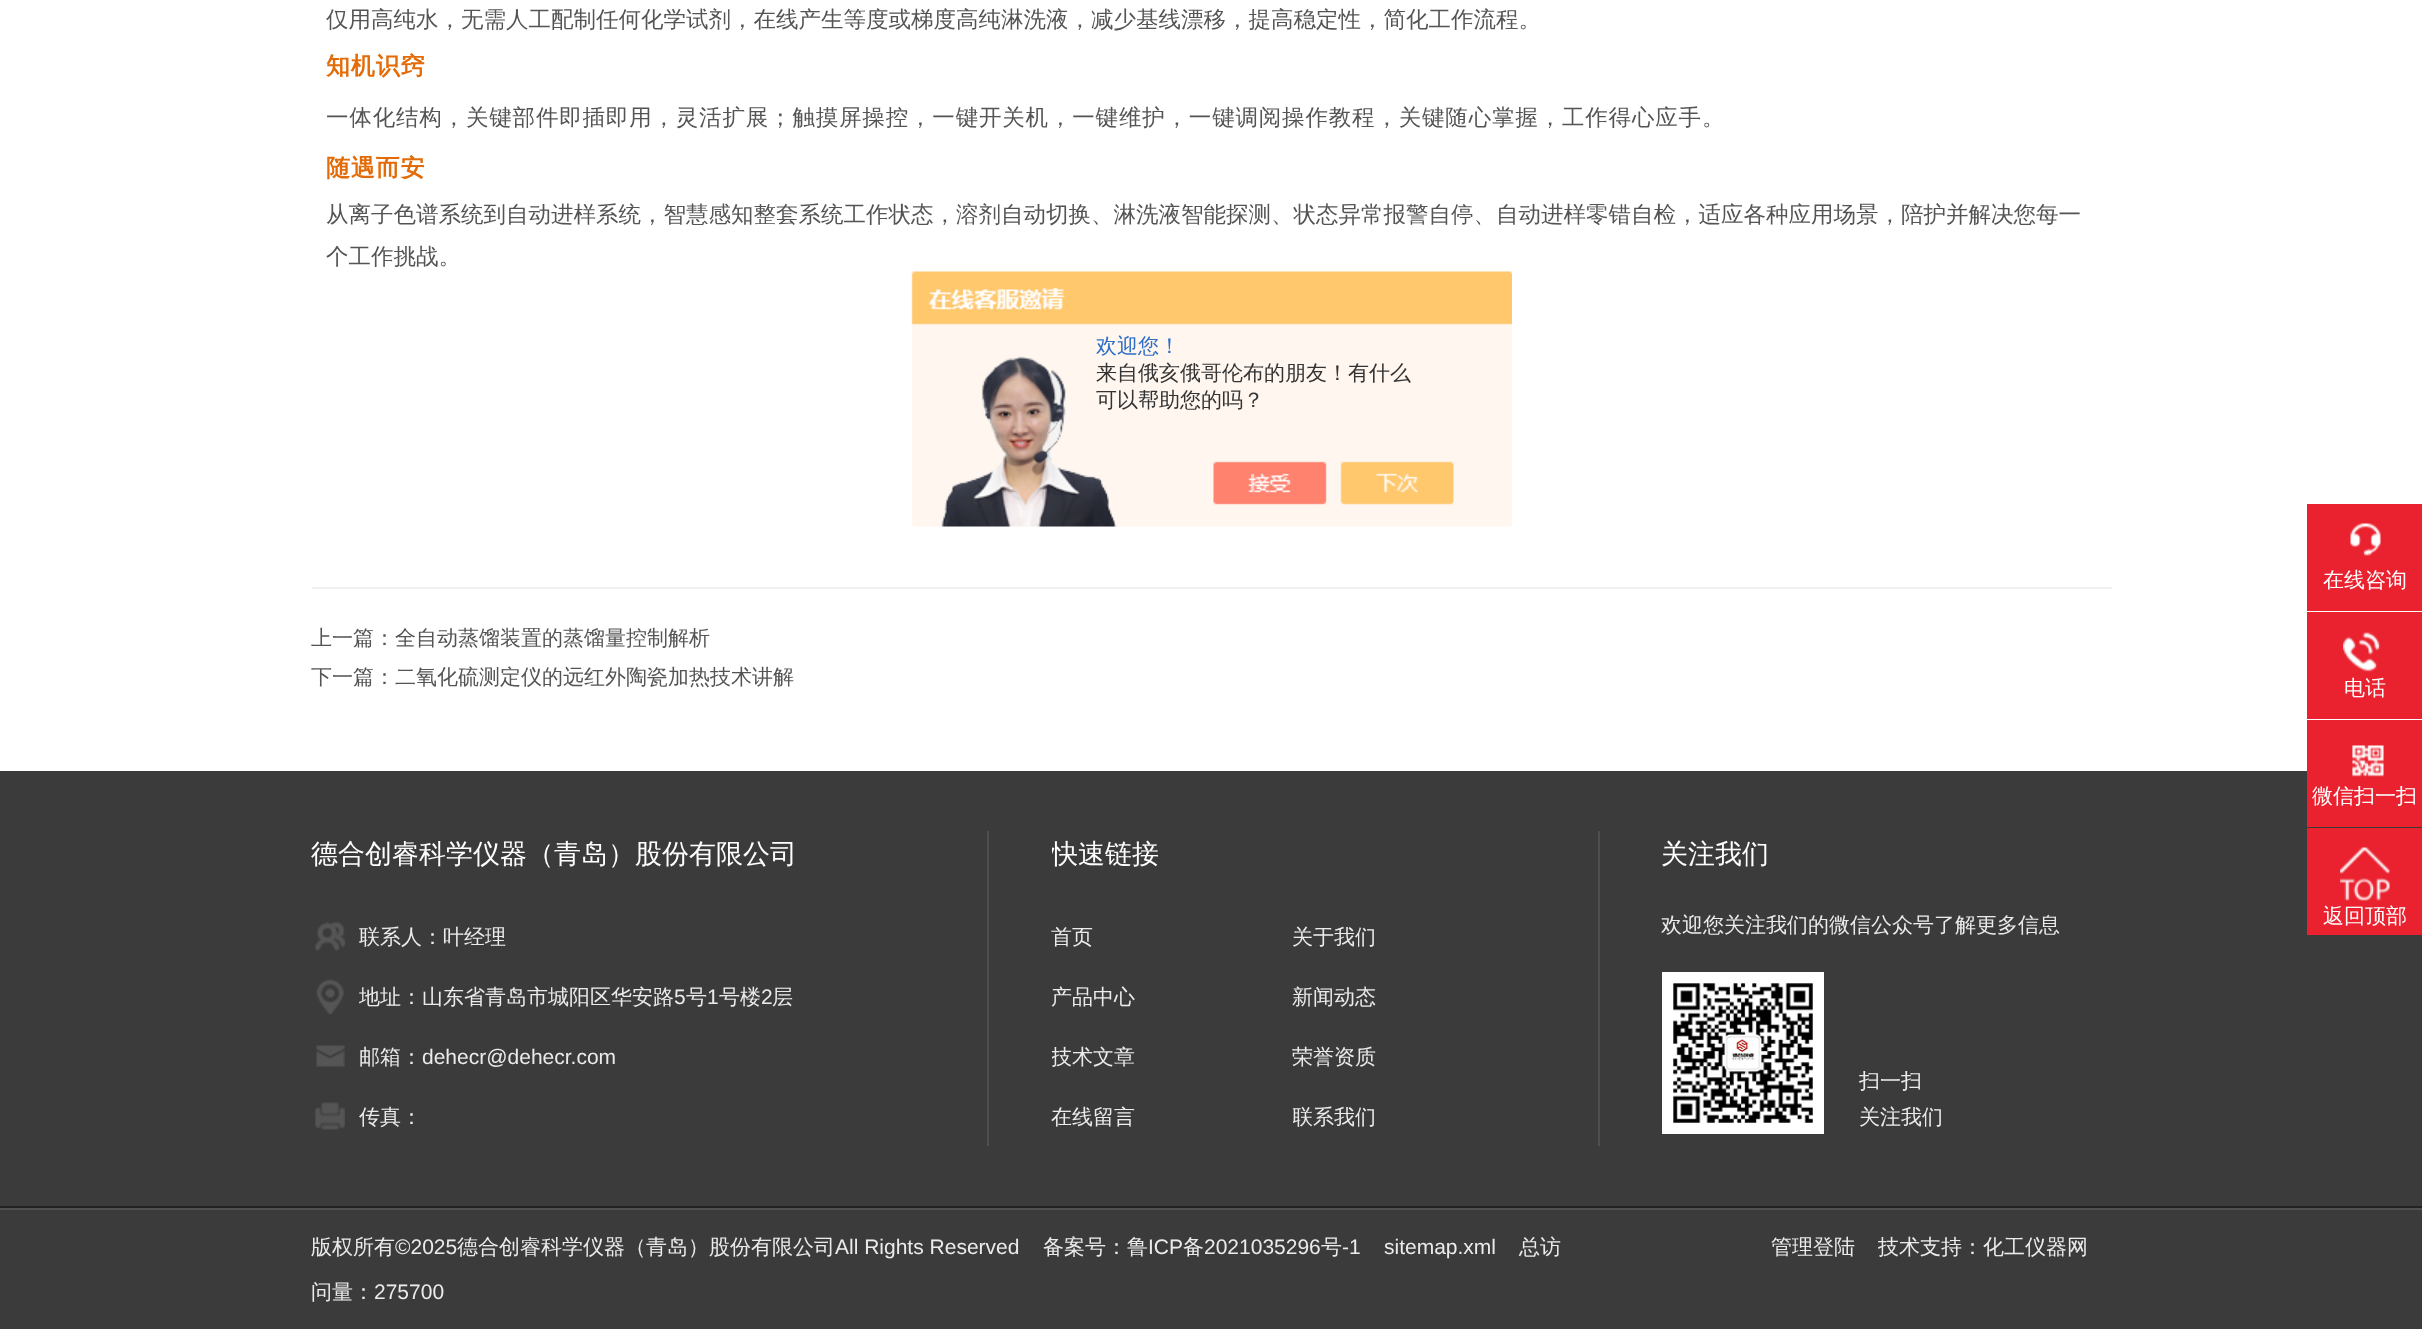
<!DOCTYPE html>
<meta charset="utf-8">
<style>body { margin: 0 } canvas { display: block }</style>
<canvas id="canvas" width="2422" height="1329"></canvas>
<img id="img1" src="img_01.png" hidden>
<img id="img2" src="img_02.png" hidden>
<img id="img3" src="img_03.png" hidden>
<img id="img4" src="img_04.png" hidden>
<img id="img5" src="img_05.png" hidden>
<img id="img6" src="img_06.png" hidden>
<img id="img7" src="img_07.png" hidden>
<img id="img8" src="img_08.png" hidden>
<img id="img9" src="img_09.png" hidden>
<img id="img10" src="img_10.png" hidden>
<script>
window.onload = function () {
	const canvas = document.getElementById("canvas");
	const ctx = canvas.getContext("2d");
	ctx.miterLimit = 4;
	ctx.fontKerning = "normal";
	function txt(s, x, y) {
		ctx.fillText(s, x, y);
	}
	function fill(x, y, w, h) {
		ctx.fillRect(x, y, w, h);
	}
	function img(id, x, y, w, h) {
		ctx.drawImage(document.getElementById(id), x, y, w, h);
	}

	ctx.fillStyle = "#FFFFFF";
	fill(0, 0, 2422, 1329);
	ctx.fillStyle = "#F1F1F1";
	fill(312, 587, 1800, 2);
	img("img1", 911, 271, 601, 256);
	ctx.fillStyle = "#EA222F";
	fill(2307, 504, 115, 107);
	img("img2", 2350, 523, 31, 33);
	fill(2307, 612, 115, 107);
	img("img3", 2343, 632, 37, 40);
	ctx.fillStyle = "#3B3B3B";
	fill(0, 771, 2422, 558);
	ctx.fillStyle = "#EA222F";
	fill(2307, 720, 115, 107);
	img("img4", 2352, 745, 32, 32);
	fill(2307, 828, 115, 107);
	img("img5", 2340, 847, 50, 54);
	ctx.fillStyle = "#222222";
	fill(0, 1206, 2422, 2);
	img("img6", 315, 922, 31, 29);
	img("img7", 316, 979, 28, 35);
	img("img8", 316, 1045, 29, 22);
	img("img9", 315, 1102, 30, 28);
	ctx.fillStyle = "#4F4F4F";
	fill(1598, 831, 2, 315);
	fill(987, 831, 2, 315);
	img("img10", 1662, 972, 162, 162);
	ctx.fillStyle = "#515151";
	fill(0, 1208, 2422, 2);
	ctx.font = "500 22.5px WenQuanYi Zen Hei";
	ctx.fillStyle = "#545454";
	txt("仅用高纯水，无需人工配制任何化学试剂，在线产生等度或梯度高纯淋洗液，减少基线漂移，提高稳定性，简化工作流程。", 326, 27);
	ctx.letterSpacing = "0.82px";
	ctx.font = "bold 24px WenQuanYi Zen Hei";
	ctx.fillStyle = "#E36C09";
	txt("知机识窍", 326, 74);
	ctx.font = "500 22.5px WenQuanYi Zen Hei";
	ctx.fillStyle = "#545454";
	txt("一体化结构，关键部件即插即用，灵活扩展；触摸屏操控，一键开关机，一键维护，一键调阅操作教程，关键随心掌握，工作得心应手。", 326, 125);
	ctx.font = "bold 24px WenQuanYi Zen Hei";
	ctx.fillStyle = "#E36C09";
	txt("随遇而安", 326, 176);
	ctx.letterSpacing = "0px";
	ctx.font = "500 22.5px WenQuanYi Zen Hei";
	ctx.fillStyle = "#545454";
	txt("从离子色谱系统到自动进样系统，智慧感知整套系统工作状态，溶剂自动切换、淋洗液智能探测、状态异常报警自停、自动进样零错自检，适应各种应用场景，陪护并解决您每一", 326, 222);
	txt("个工作挑战。", 326, 264);
	ctx.font = "500 21px WenQuanYi Zen Hei";
	txt("上一篇：全自动蒸馏装置的蒸馏量控制解析", 311, 645);
	txt("下一篇：二氧化硫测定仪的远红外陶瓷加热技术讲解", 311, 684);
	ctx.fillStyle = "#2E6EC6";
	txt("欢迎您！", 1096, 353);
	ctx.fillStyle = "#333333";
	txt("来自俄亥俄哥伦布的朋友！有什么", 1096, 380);
	txt("可以帮助您的吗？", 1096, 407);
	ctx.fillStyle = "#FFFFFF";
	txt("在线咨询", 2323, 587);
	txt("电话", 2344, 695);
	txt("微信扫一扫", 2312, 803);
	txt("返回顶部", 2323, 923);
	ctx.font = "500 27px WenQuanYi Zen Hei";
	txt("德合创睿科学仪器（青岛）股份有限公司", 311, 863);
	ctx.font = "500 21px WenQuanYi Zen Hei";
	ctx.fillStyle = "#EBEBEB";
	txt("联系人：叶经理", 359, 944);
	txt("地址：山东省青岛市城阳区华安路", 359, 1004);
	ctx.font = "21px Liberation Sans";
	txt("5", 674, 1004);
	ctx.font = "500 21px WenQuanYi Zen Hei";
	txt("号", 686, 1004);
	ctx.font = "21px Liberation Sans";
	txt("1", 707, 1004);
	ctx.font = "500 21px WenQuanYi Zen Hei";
	txt("号楼", 719, 1004);
	ctx.font = "21px Liberation Sans";
	txt("2", 761, 1004);
	ctx.font = "500 21px WenQuanYi Zen Hei";
	txt("层", 772, 1004);
	txt("邮箱：", 359, 1064);
	ctx.font = "21px Liberation Sans";
	txt("dehecr@dehecr.com", 422, 1064);
	ctx.font = "500 21px WenQuanYi Zen Hei";
	txt("传真：", 359, 1124);
	ctx.save();
	ctx.beginPath();
	ctx.rect(1052, 831, 483, 45);
	ctx.clip();
	ctx.font = "500 27px WenQuanYi Zen Hei";
	ctx.fillStyle = "#FFFFFF";
	txt("快速链接", 1051, 863);
	ctx.restore();
	txt("首页", 1051, 944);
	txt("关于我们", 1292, 944);
	txt("产品中心", 1051, 1004);
	txt("新闻动态", 1292, 1004);
	ctx.save();
	ctx.beginPath();
	ctx.rect(1052, 1026, 241, 60);
	ctx.clip();
	txt("技术文章", 1051, 1064);
	ctx.restore();
	txt("荣誉资质", 1292, 1064);
	txt("在线留言", 1051, 1124);
	ctx.save();
	ctx.beginPath();
	ctx.rect(1293, 1086, 242, 60);
	ctx.clip();
	txt("联系我们", 1292, 1124);
	ctx.restore();
	ctx.font = "500 27px WenQuanYi Zen Hei";
	ctx.fillStyle = "#FFFFFF";
	txt("关注我们", 1661, 863);
	ctx.font = "500 21px WenQuanYi Zen Hei";
	ctx.fillStyle = "#EBEBEB";
	txt("欢迎您关注我们的微信公众号了解更多信息", 1661, 932);
	txt("扫一扫", 1859, 1088);
	txt("关注我们", 1859, 1124);
	txt("版权所有", 311, 1254);
	ctx.font = "21px Liberation Sans";
	txt("©2025", 395, 1254);
	ctx.font = "500 21px WenQuanYi Zen Hei";
	txt("德合创睿科学仪器（青岛）股份有限公司", 457, 1254);
	ctx.font = "21px Liberation Sans";
	txt("All Rights Reserved", 835, 1254);
	ctx.font = "500 21px WenQuanYi Zen Hei";
	txt("备案号：鲁", 1043, 1254);
	ctx.font = "21px Liberation Sans";
	txt("ICP", 1148, 1254);
	ctx.font = "500 21px WenQuanYi Zen Hei";
	txt("备", 1183, 1254);
	ctx.font = "21px Liberation Sans";
	txt("2021035296", 1204, 1254);
	ctx.font = "500 21px WenQuanYi Zen Hei";
	txt("号", 1321, 1254);
	ctx.font = "21px Liberation Sans";
	txt("-1", 1342, 1254);
	txt("sitemap.xml", 1384, 1254);
	ctx.font = "500 21px WenQuanYi Zen Hei";
	txt("总访", 1519, 1254);
	txt("问量：", 311, 1299);
	ctx.font = "21px Liberation Sans";
	txt("275700", 374, 1299);
	ctx.font = "500 21px WenQuanYi Zen Hei";
	txt("管理登陆", 1771, 1254);
	txt("技术支持：化工仪器网", 1878, 1254);
};
</script>
